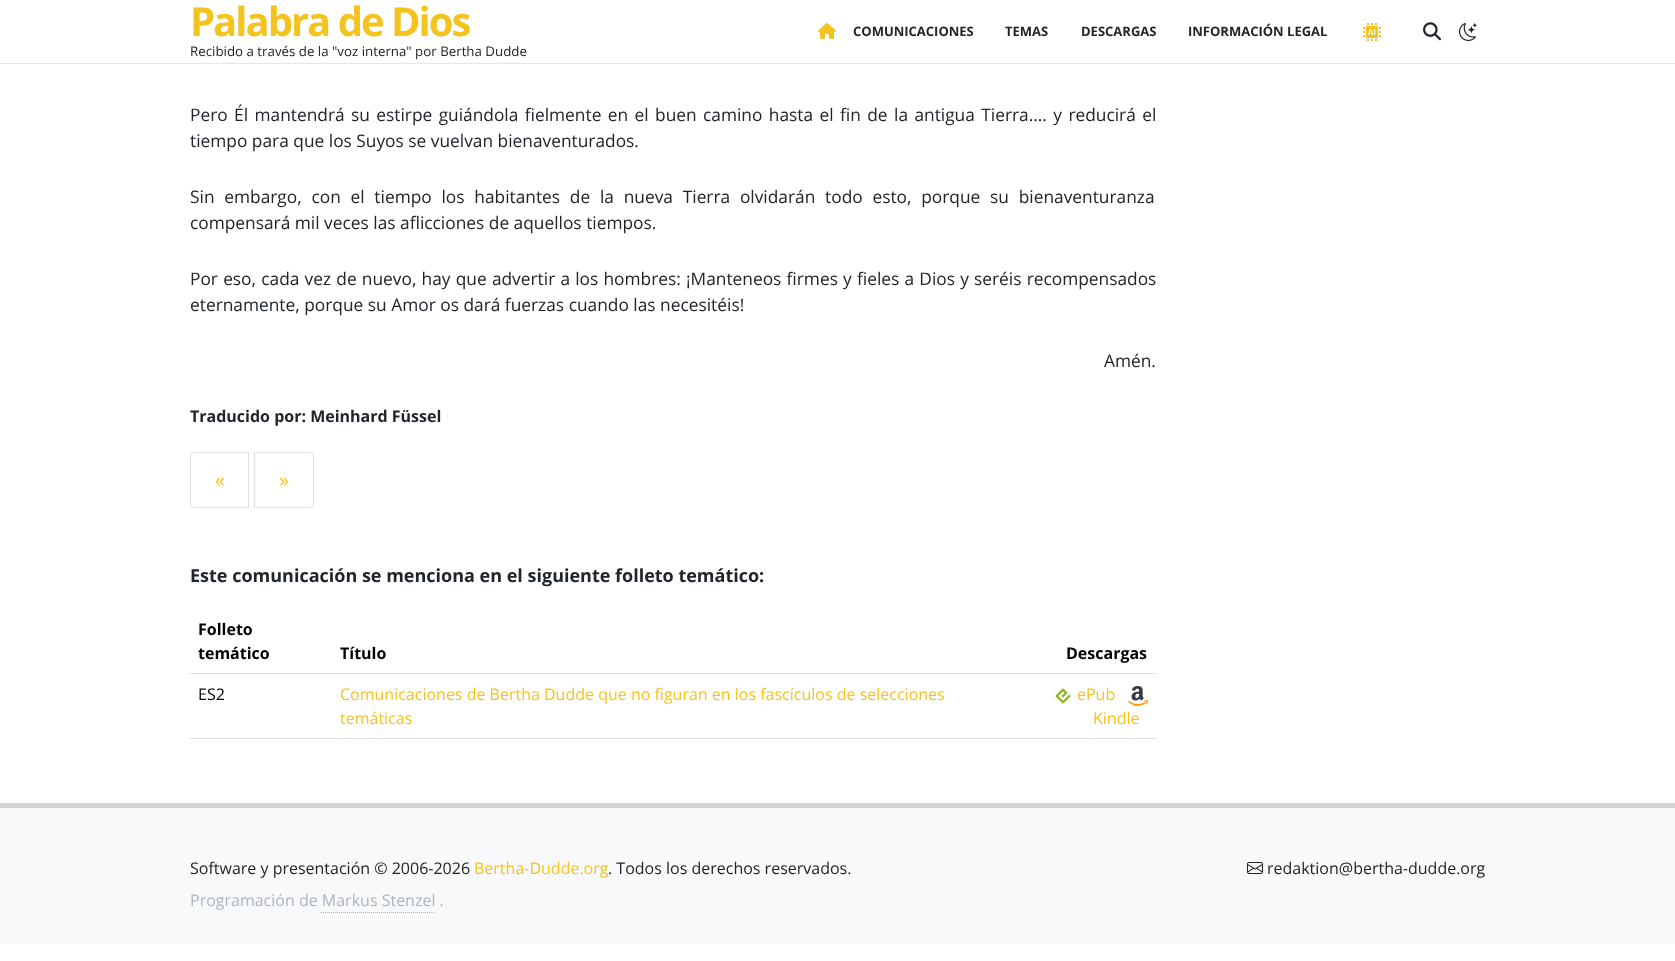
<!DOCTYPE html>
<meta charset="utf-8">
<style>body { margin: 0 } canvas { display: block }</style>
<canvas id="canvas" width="1675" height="961"></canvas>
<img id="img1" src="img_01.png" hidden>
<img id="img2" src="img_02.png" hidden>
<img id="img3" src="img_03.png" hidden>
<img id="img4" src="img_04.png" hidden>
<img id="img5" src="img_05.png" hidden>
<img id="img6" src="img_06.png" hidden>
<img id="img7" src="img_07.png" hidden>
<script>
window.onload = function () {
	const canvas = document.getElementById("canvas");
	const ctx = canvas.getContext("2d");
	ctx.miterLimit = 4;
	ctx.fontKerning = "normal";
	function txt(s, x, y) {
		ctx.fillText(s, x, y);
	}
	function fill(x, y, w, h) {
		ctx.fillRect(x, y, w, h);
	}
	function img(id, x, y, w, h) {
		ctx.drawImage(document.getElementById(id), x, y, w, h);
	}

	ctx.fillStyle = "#FFFFFF";
	fill(0, 0, 1675, 961);
	ctx.fillStyle = "#E6E6E6";
	fill(0, 63, 1675, 1);
	img("img1", 818, 23, 18, 16);
	img("img2", 1363, 23, 18, 18);
	img("img3", 1423, 22, 18, 19);
	img("img4", 1459, 23, 18, 18);
	ctx.beginPath();
	ctx.roundRect(190.5, 452.5, 58, 55, [3.5, 0, 0, 3.5]);
	ctx.strokeStyle = "#DEE2E6";
	ctx.stroke();
	ctx.beginPath();
	ctx.roundRect(254.5, 452.5, 59, 55, [0, 3.5, 3.5, 0]);
	ctx.stroke();
	ctx.fillStyle = "#DEE2E6";
	fill(189, 673, 967, 1);
	fill(189, 738, 967, 1);
	img("img5", 1055, 688, 16, 16);
	img("img6", 1128, 686, 20, 20);
	ctx.fillStyle = "#F8F9FA";
	fill(0, 808, 1675, 135);
	ctx.fillStyle = "#D3D4D5";
	fill(0, 803, 1675, 5);
	ctx.beginPath();
	ctx.moveTo(321, 912.5);
	ctx.lineTo(435, 912.5);
	ctx.strokeStyle = "#ADB5BD";
	ctx.setLineDash([1, 1]);
	ctx.stroke();
	img("img7", 1247, 862, 16, 12);
	ctx.letterSpacing = "-2px";
	ctx.font = "bold 40px Open Sans";
	ctx.fillStyle = "#F5C31D";
	txt("Palabra de Dios", 190, 36);
	ctx.letterSpacing = "0px";
	ctx.font = "13.3px Open Sans";
	ctx.fillStyle = "#212529";
	txt("Recibido a través de la \"voz interna\" por Bertha Dudde", 190, 56);
	ctx.font = "bold 13px Open Sans";
	txt("COMUNICACIONES", 853, 36);
	txt("TEMAS", 1005, 36);
	txt("DESCARGAS", 1081, 36);
	txt("INFORMACIÓN LEGAL", 1188, 36);
	ctx.wordSpacing = "1.9px";
	ctx.font = "17.33px Open Sans";
	txt("Pero Él mantendrá su estirpe guiándola fielmente en el buen camino hasta el fin de la antigua Tierra.... y reducirá el", 190, 121);
	ctx.wordSpacing = "0px";
	txt("tiempo para que los Suyos se vuelvan bienaventurados.", 190, 147);
	ctx.wordSpacing = "5.25px";
	txt("Sin embargo, con el tiempo los habitantes de la nueva Tierra olvidarán todo esto, porque su bienaventuranza", 190, 203);
	ctx.wordSpacing = "0px";
	txt("compensará mil veces las aflicciones de aquellos tiempos.", 190, 229);
	ctx.wordSpacing = "0.7px";
	txt("Por eso, cada vez de nuevo, hay que advertir a los hombres: ¡Manteneos firmes y fieles a Dios y seréis recompensados", 190, 285);
	ctx.wordSpacing = "0px";
	txt("eternamente, porque su Amor os dará fuerzas cuando las necesitéis!", 190, 311);
	txt("Amén.", 1104, 367);
	ctx.font = "bold 16px Open Sans";
	txt("Traducido por: Meinhard Füssel", 190, 422);
	ctx.font = "20px Open Sans";
	ctx.fillStyle = "#F5C31D";
	txt("«", 215, 487);
	txt("»", 279, 487);
	ctx.font = "bold 18px Open Sans";
	ctx.fillStyle = "#212529";
	txt("Este comunicación se menciona en el siguiente folleto temático:", 190, 582);
	ctx.font = "bold 16px Open Sans";
	ctx.fillStyle = "#000000";
	txt("Folleto", 198, 635);
	txt("temático", 198, 659);
	txt("Título", 340, 659);
	txt("Descargas", 1066, 659);
	ctx.font = "16px Open Sans";
	txt("ES2", 198, 700);
	ctx.fillStyle = "#F5C31D";
	txt("Comunicaciones de Bertha Dudde que no figuran en los fascículos de selecciones", 340, 700);
	txt("temáticas", 340, 724);
	txt("ePub", 1077, 700);
	txt("Kindle", 1093, 724);
	ctx.fillStyle = "#212529";
	txt("Software y presentación © 2006-2026", 190, 874);
	ctx.fillStyle = "#F5C31D";
	txt("Bertha-Dudde.org", 474, 874);
	ctx.fillStyle = "#212529";
	txt(". Todos los derechos reservados.", 608, 874);
	ctx.fillStyle = "#ADB5BD";
	txt("Programación de Markus Stenzel .", 190, 906);
	ctx.fillStyle = "#212529";
	txt("redaktion@bertha-dudde.org", 1267, 874);
};
</script>
